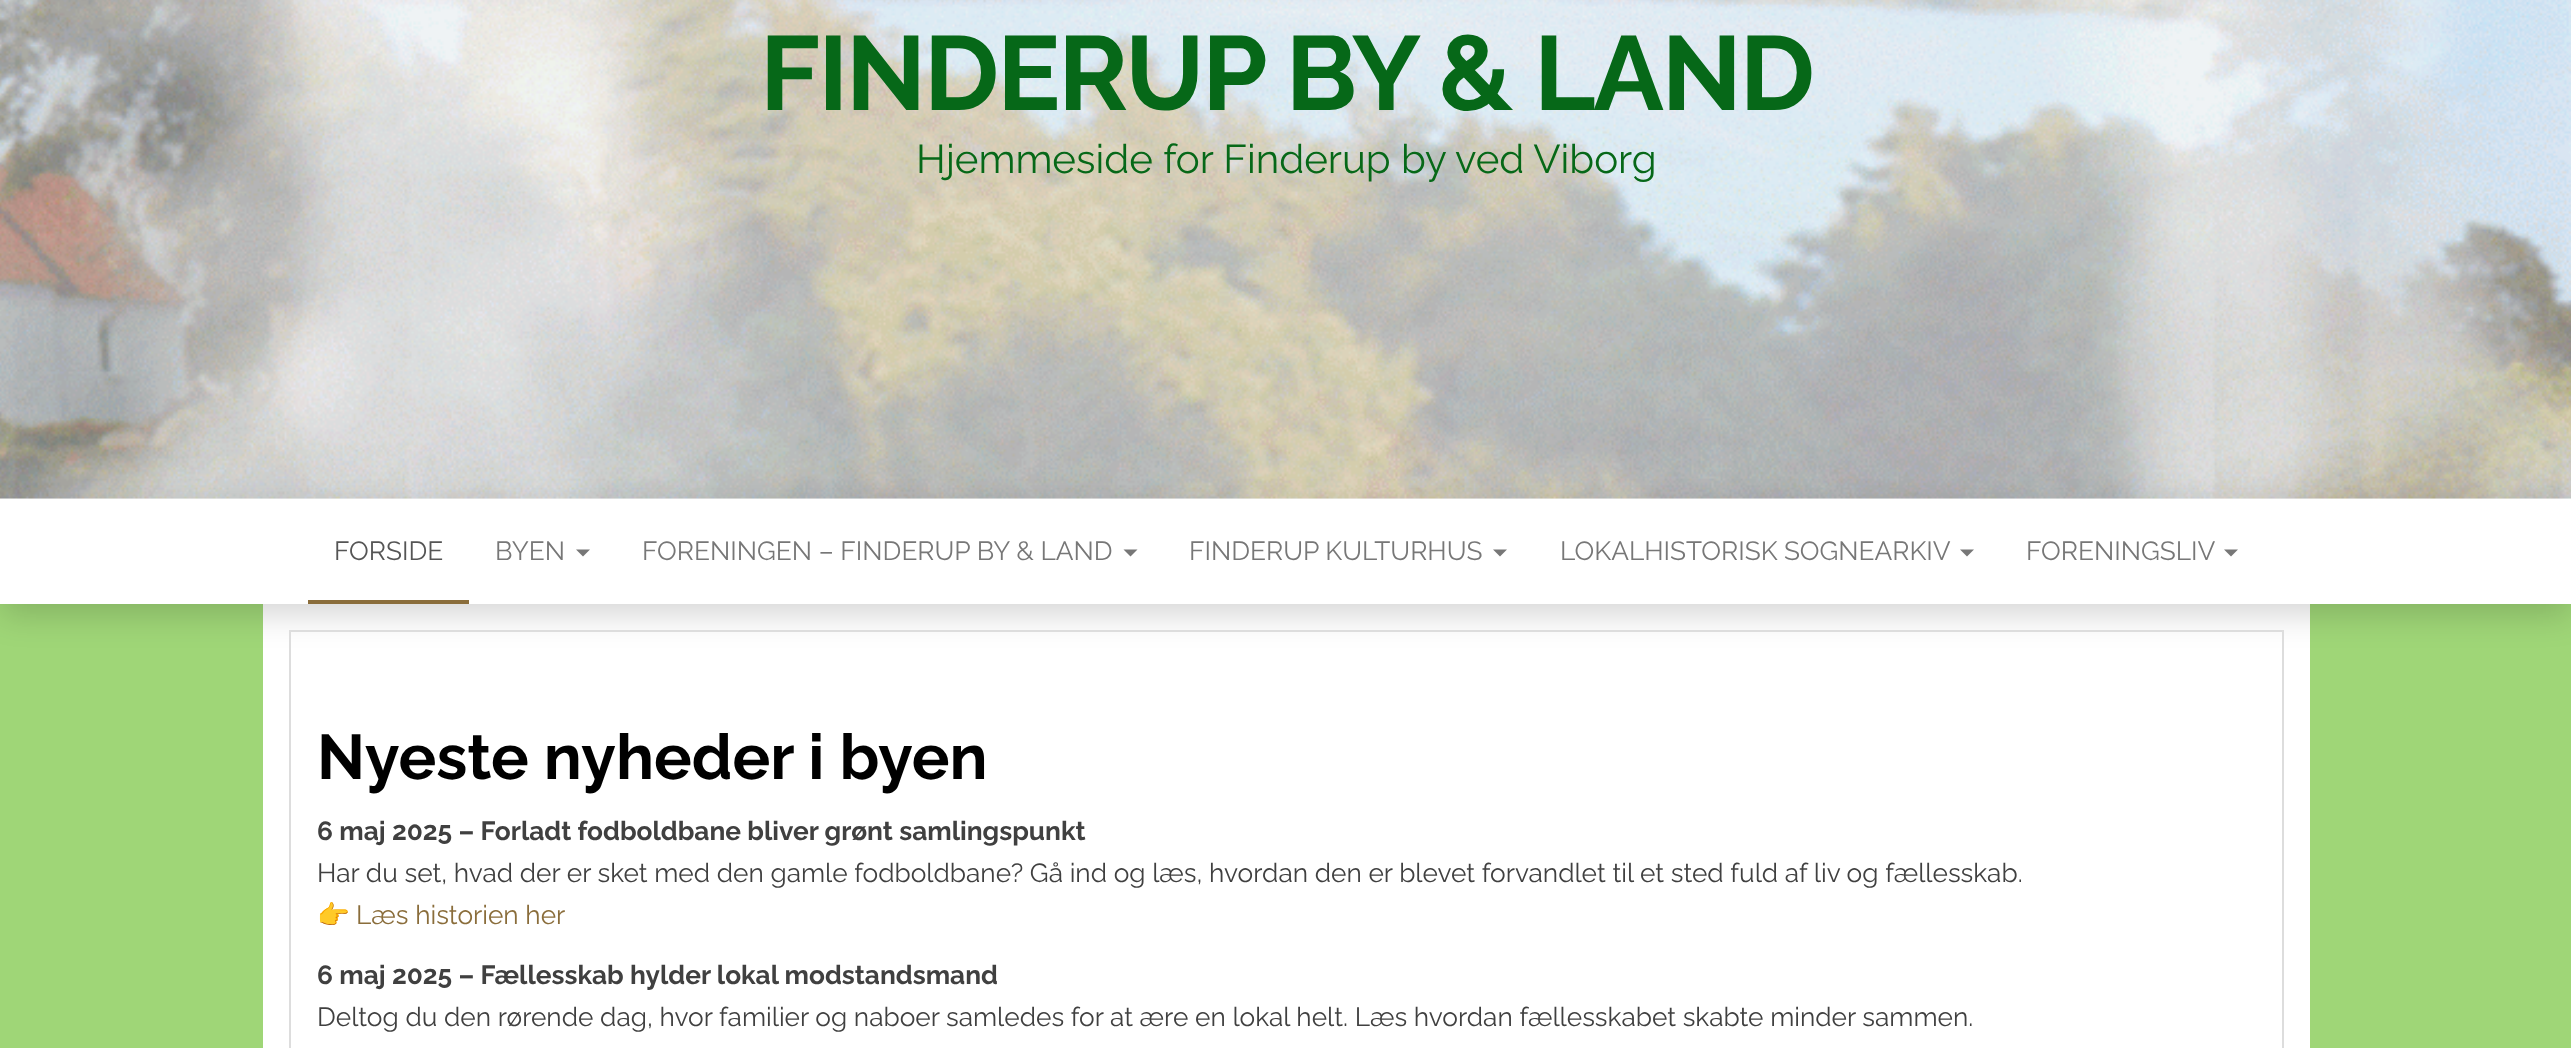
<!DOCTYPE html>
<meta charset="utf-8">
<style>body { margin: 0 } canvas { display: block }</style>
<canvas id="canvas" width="2571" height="1048"></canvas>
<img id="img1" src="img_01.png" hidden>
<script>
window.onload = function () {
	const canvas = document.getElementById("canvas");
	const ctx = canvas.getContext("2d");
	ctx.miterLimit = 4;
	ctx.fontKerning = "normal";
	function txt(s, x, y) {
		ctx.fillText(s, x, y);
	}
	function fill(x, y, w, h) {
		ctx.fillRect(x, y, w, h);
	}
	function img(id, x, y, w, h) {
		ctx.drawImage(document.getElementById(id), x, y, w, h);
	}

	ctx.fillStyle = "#9FD677";
	fill(0, 0, 2571, 1048);
	ctx.fillStyle = "#FFFFFF";
	fill(0, 498, 2571, 1);
	img("img1", 0, 0, 2571, 499);
	fill(263, 604, 2047, 444);
	ctx.fillStyle = "rgba(0, 0, 0, 0.17)";
	ctx.filter = "blur(16.5px)";
	ctx.beginPath();
	ctx.rect(2, 513, 2569, 101);
	ctx.fill();
	ctx.filter = "none";
	ctx.fillStyle = "#FFFFFF";
	fill(0, 499, 2571, 105);
	ctx.fillStyle = "#8A6D3B";
	fill(308, 600, 161, 4);
	ctx.fillStyle = "#777777";
	ctx.beginPath();
	ctx.moveTo(576, 549.5);
	ctx.lineTo(590, 549.5);
	ctx.lineTo(583, 556.5);
	ctx.closePath();
	ctx.fill();
	ctx.beginPath();
	ctx.moveTo(1123.5, 549.5);
	ctx.lineTo(1137.5, 549.5);
	ctx.lineTo(1130.5, 556.5);
	ctx.closePath();
	ctx.fill();
	ctx.beginPath();
	ctx.moveTo(1493, 549.5);
	ctx.lineTo(1507, 549.5);
	ctx.lineTo(1500, 556.5);
	ctx.closePath();
	ctx.fill();
	ctx.beginPath();
	ctx.moveTo(1960, 549.5);
	ctx.lineTo(1974, 549.5);
	ctx.lineTo(1967, 556.5);
	ctx.closePath();
	ctx.fill();
	ctx.beginPath();
	ctx.moveTo(2224, 549.5);
	ctx.lineTo(2238, 549.5);
	ctx.lineTo(2231, 556.5);
	ctx.closePath();
	ctx.fill();
	ctx.strokeStyle = "#DDDDDD";
	ctx.lineWidth = 2;
	ctx.strokeRect(290, 631, 1993, 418);
	ctx.letterSpacing = "-2.1px";
	ctx.font = "bold 105px Raleway";
	ctx.fillStyle = "#066818";
	txt("FINDERUP BY & LAND", 760, 110);
	ctx.letterSpacing = "0px";
	ctx.font = "40.25px Raleway";
	txt("Hjemmeside for Finderup by ved Viborg", 916, 173);
	ctx.font = "26.25px Raleway";
	ctx.fillStyle = "#555555";
	txt("FORSIDE", 334, 560);
	ctx.fillStyle = "#777777";
	txt("BYEN", 495, 560);
	txt("FORENINGEN – FINDERUP BY & LAND", 642, 560);
	txt("FINDERUP KULTURHUS", 1189, 560);
	txt("LOKALHISTORISK SOGNEARKIV", 1560, 560);
	txt("FORENINGSLIV", 2026, 560);
	ctx.font = "bold 63px Raleway";
	ctx.fillStyle = "#000000";
	txt("Nyeste nyheder i byen", 317, 779);
	ctx.font = "bold 26.25px Raleway";
	ctx.fillStyle = "#404040";
	txt("6 maj 2025 – Forladt fodboldbane bliver grønt samlingspunkt", 317, 840);
	ctx.font = "26.25px Raleway";
	txt("Har du set, hvad der er sket med den gamle fodboldbane? Gå ind og læs, hvordan den er blevet forvandlet til et sted fuld af liv og fællesskab.", 317, 882);
	ctx.font = "26.25px Noto Color Emoji";
	txt("👉", 317, 924);
	ctx.font = "26.25px Raleway";
	ctx.fillStyle = "#8A6D3B";
	txt("Læs historien her", 356, 924);
	ctx.font = "bold 26.25px Raleway";
	ctx.fillStyle = "#404040";
	txt("6 maj 2025 – Fællesskab hylder lokal modstandsmand", 317, 984);
	ctx.font = "26.25px Raleway";
	txt("Deltog du den rørende dag, hvor familier og naboer samledes for at ære en lokal helt. Læs hvordan fællesskabet skabte minder sammen.", 317, 1026);
};
</script>
